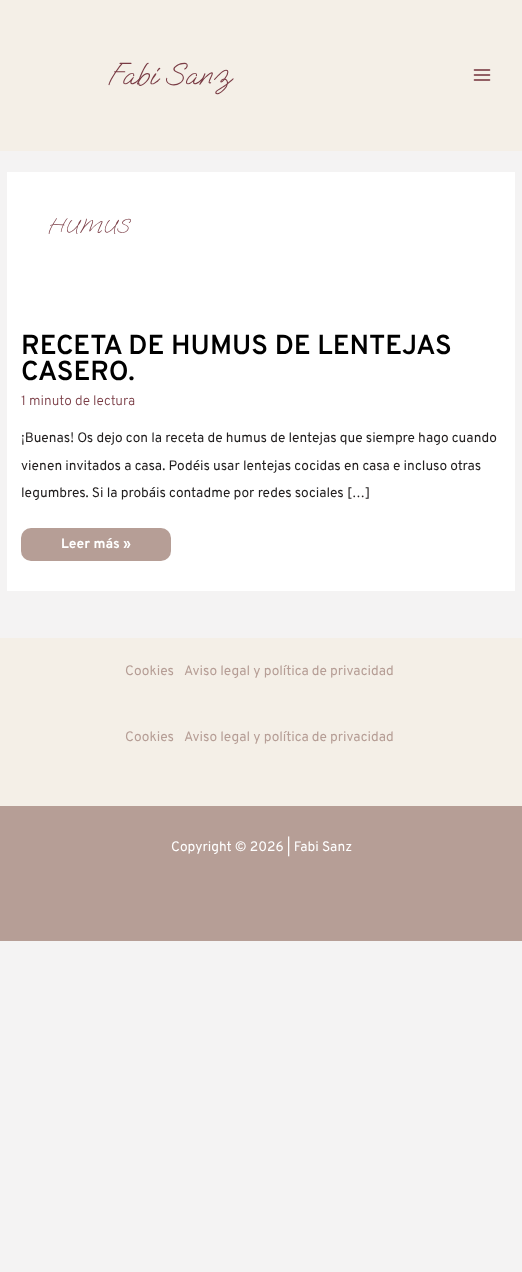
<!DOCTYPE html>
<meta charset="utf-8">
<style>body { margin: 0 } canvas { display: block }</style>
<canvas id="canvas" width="522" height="1272"></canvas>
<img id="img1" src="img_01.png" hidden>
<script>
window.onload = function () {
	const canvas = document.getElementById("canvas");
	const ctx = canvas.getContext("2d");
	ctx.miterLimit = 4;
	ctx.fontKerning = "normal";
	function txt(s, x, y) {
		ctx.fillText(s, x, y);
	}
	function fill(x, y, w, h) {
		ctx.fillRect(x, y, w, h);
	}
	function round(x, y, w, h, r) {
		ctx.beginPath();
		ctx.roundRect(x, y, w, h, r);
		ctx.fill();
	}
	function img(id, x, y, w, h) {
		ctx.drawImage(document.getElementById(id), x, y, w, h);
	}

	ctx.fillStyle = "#F4F3F3";
	fill(0, 0, 522, 1272);
	ctx.fillStyle = "#F4EFE7";
	fill(0, 0, 522, 151);
	img("img1", 473, 69, 18, 12);
	ctx.fillStyle = "#FFFFFF";
	fill(7, 172, 508, 419);
	ctx.fillStyle = "#B69E96";
	round(21, 528, 150, 33, 10);
	ctx.fillStyle = "#F4EFE7";
	fill(0, 638, 522, 168);
	ctx.fillStyle = "#B69E96";
	fill(0, 806, 522, 135);
	ctx.font = "32px Oooh Baby";
	ctx.fillStyle = "#793B44";
	txt("Fabi Sanz", 108, 84);
	ctx.font = "20px Oooh Baby";
	txt("HUMUS", 48, 232);
	ctx.font = "600 27.4px Overpass";
	ctx.fillStyle = "#000000";
	txt("RECETA DE HUMUS DE LENTEJAS", 21, 354);
	txt("CASERO.", 21, 380);
	ctx.font = "300 13.7px Overpass";
	ctx.fillStyle = "#793B44";
	txt("1 minuto de lectura", 21, 405);
	ctx.font = "13.7px Overpass";
	ctx.fillStyle = "#221F1F";
	txt("¡Buenas! Os dejo con la receta de humus de lentejas que siempre hago cuando", 21, 442);
	txt("vienen invitados a casa. Podéis usar lentejas cocidas en casa e incluso otras", 21, 470);
	txt("legumbres. Si la probáis contadme por redes sociales […]", 21, 497);
	ctx.font = "bold 13.7px Overpass";
	ctx.fillStyle = "#FFFFFF";
	txt("Leer más »", 61, 548);
	ctx.font = "13.7px Overpass";
	ctx.fillStyle = "#B69E96";
	txt("Cookies", 125, 675);
	txt("Aviso legal y política de privacidad", 184, 675);
	txt("Cookies", 125, 741);
	txt("Aviso legal y política de privacidad", 184, 741);
	ctx.fillStyle = "#FFFFFF";
	txt("Copyright © 2026 | Fabi Sanz", 171, 851);
};
</script>
